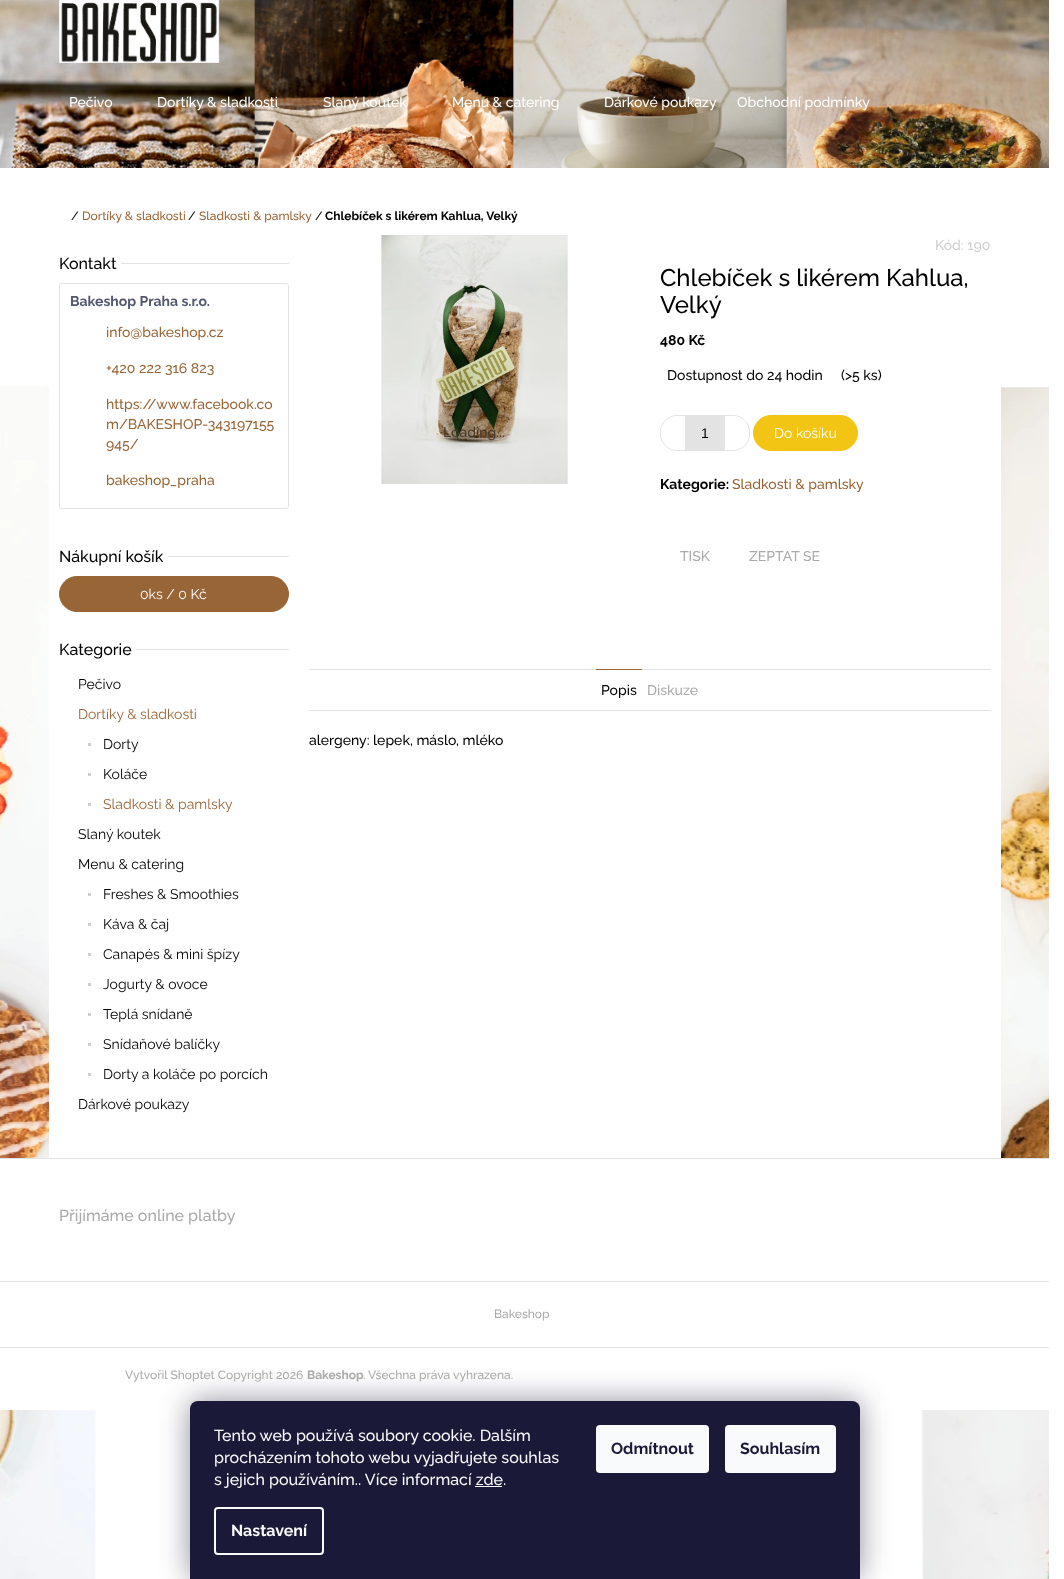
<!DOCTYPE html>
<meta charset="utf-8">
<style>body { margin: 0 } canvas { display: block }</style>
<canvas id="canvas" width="1064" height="1579"></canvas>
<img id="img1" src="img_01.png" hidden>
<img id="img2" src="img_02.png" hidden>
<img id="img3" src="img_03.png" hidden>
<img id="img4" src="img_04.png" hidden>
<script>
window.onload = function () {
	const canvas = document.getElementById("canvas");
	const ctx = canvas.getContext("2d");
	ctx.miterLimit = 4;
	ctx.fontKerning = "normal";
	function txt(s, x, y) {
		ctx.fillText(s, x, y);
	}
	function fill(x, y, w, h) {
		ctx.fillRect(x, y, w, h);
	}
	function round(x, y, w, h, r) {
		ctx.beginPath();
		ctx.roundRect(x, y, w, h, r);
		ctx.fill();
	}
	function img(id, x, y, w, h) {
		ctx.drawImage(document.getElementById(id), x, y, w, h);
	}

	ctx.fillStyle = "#FFFFFF";
	fill(0, 0, 1064, 1579);
	img("img1", 0, 386, 1049, 1193);
	img("img2", 0, 0, 1049, 168);
	img("img3", 58, 0, 162, 63);
	fill(49, 386, 952, 772);
	ctx.fillStyle = "#E3E3E3";
	fill(121, 263, 168, 1);
	ctx.beginPath();
	ctx.roundRect(59.5, 283.5, 229, 225, 2.5);
	ctx.strokeStyle = "#E3E3E3";
	ctx.stroke();
	fill(168, 556, 121, 1);
	ctx.fillStyle = "#986536";
	ctx.beginPath();
	ctx.roundRect(59.5, 576.5, 229, 35, 17.5);
	ctx.fill();
	ctx.strokeStyle = "#986536";
	ctx.stroke();
	ctx.fillStyle = "#E3E3E3";
	fill(136, 649, 153, 1);
	ctx.fillStyle = "#CFCFCF";
	fill(88, 743, 3, 3);
	fill(88, 773, 3, 3);
	fill(88, 803, 3, 3);
	fill(88, 893, 3, 3);
	fill(88, 923, 3, 3);
	fill(88, 953, 3, 3);
	fill(88, 983, 3, 3);
	fill(88, 1013, 3, 3);
	fill(88, 1043, 3, 3);
	fill(88, 1073, 3, 3);
	img("img4", 381, 235, 187, 249);
	ctx.beginPath();
	ctx.roundRect(660.5, 415.5, 89, 35, 16.5);
	ctx.strokeStyle = "#E3E3E3";
	ctx.stroke();
	ctx.fillStyle = "#FFFFFF";
	ctx.beginPath();
	ctx.roundRect(661, 416, 24, 34, [17, 0, 0, 17]);
	ctx.fill();
	ctx.fillStyle = "#E3E3E3";
	fill(685, 416, 40, 34);
	ctx.fillStyle = "#FFFFFF";
	ctx.beginPath();
	ctx.roundRect(725, 416, 24, 34, [0, 17, 17, 0]);
	ctx.fill();
	ctx.fillStyle = "#F2C514";
	ctx.beginPath();
	ctx.roundRect(753.5, 415.5, 104, 35, 17.5);
	ctx.fill();
	ctx.strokeStyle = "#F2C514";
	ctx.stroke();
	ctx.fillStyle = "#E3E3E3";
	fill(309, 669, 682, 1);
	fill(309, 710, 682, 1);
	ctx.fillStyle = "#986536";
	fill(596, 669, 46, 1);
	ctx.fillStyle = "#FFFFFF";
	fill(0, 1159, 1049, 251);
	ctx.fillStyle = "#E3E3E3";
	fill(0, 1158, 1049, 1);
	fill(0, 1281, 1049, 1);
	fill(0, 1347, 1049, 1);
	ctx.fillStyle = "rgba(27, 25, 57, 0.5)";
	ctx.filter = "blur(15px)";
	ctx.beginPath();
	ctx.roundRect(190, 1401, 670, 178, 8);
	ctx.fill();
	ctx.filter = "none";
	ctx.fillStyle = "#1A1937";
	ctx.beginPath();
	ctx.roundRect(190, 1401, 670, 178, [8, 8, 0, 0]);
	ctx.fill();
	ctx.fillStyle = "#F8FAFB";
	fill(475, 1486, 27, 1);
	ctx.beginPath();
	ctx.roundRect(215, 1508, 108, 46, 3);
	ctx.strokeStyle = "#F8FAFB";
	ctx.lineWidth = 2;
	ctx.stroke();
	round(596, 1425, 113, 48, 4);
	round(725, 1425, 111, 48, 4);
	ctx.font = "500 14px Raleway";
	ctx.fillStyle = "#FFFFFF";
	txt("Pečivo", 69, 107);
	txt("Dortíky & sladkosti", 157, 107);
	txt("Slaný koutek", 323, 107);
	txt("Menu & catering", 452, 107);
	txt("Dárkové poukazy", 604, 107);
	txt("Obchodní podmínky", 737, 107);
	ctx.font = "500 12px Raleway";
	ctx.fillStyle = "#000000";
	txt("/", 71, 220);
	ctx.fillStyle = "#986536";
	txt("Dortíky & sladkosti", 82, 220);
	ctx.fillStyle = "#000000";
	txt("/", 188, 220);
	ctx.fillStyle = "#986536";
	txt("Sladkosti & pamlsky", 199, 220);
	ctx.fillStyle = "#000000";
	txt("/", 315, 220);
	ctx.font = "bold 12px Raleway";
	txt("Chlebíček s likérem Kahlua, Velký", 325, 220);
	ctx.font = "500 16px Raleway";
	txt("Kontakt", 59, 269);
	ctx.font = "bold 14px Raleway";
	ctx.fillStyle = "#52576F";
	txt("Bakeshop Praha s.r.o.", 70, 306);
	ctx.font = "500 14px Raleway";
	ctx.fillStyle = "#986536";
	txt("info@bakeshop.cz", 106, 337);
	txt("+420 222 316 823", 106, 373);
	txt("https://www.facebook.co", 106, 409);
	txt("m/BAKESHOP-343197155", 106, 429);
	txt("945/", 106, 449);
	txt("bakeshop_praha", 106, 485);
	ctx.font = "500 16px Raleway";
	ctx.fillStyle = "#000000";
	txt("Nákupní košík", 59, 562);
	ctx.font = "14px Raleway";
	ctx.fillStyle = "#FFFFFF";
	txt("0ks / 0 Kč", 140, 599);
	ctx.font = "500 16px Raleway";
	ctx.fillStyle = "#000000";
	txt("Kategorie", 59, 655);
	ctx.font = "14px Raleway";
	txt("Pečivo", 78, 689);
	ctx.fillStyle = "#986536";
	txt("Dortíky & sladkosti", 78, 719);
	ctx.fillStyle = "#000000";
	txt("Dorty", 103, 749);
	txt("Koláče", 103, 779);
	ctx.fillStyle = "#986536";
	txt("Sladkosti & pamlsky", 103, 809);
	ctx.fillStyle = "#000000";
	txt("Slaný koutek", 78, 839);
	txt("Menu & catering", 78, 869);
	txt("Freshes & Smoothies", 103, 899);
	txt("Káva & čaj", 103, 929);
	txt("Canapés & mini špízy", 103, 959);
	txt("Jogurty & ovoce", 103, 989);
	txt("Teplá snídaně", 103, 1019);
	txt("Snídaňové balíčky", 103, 1049);
	txt("Dorty a koláče po porcích", 103, 1079);
	txt("Dárkové poukazy", 78, 1109);
	ctx.font = "500 14px Raleway";
	ctx.fillStyle = "#44392B";
	txt("Loading...", 443, 437);
	ctx.fillStyle = "#CFCFCF";
	txt("Kód: 190", 935, 250);
	ctx.font = "500 24px Raleway";
	ctx.fillStyle = "#000000";
	txt("Chlebíček s likérem Kahlua,", 660, 286);
	txt("Velký", 660, 313);
	ctx.font = "bold 14px Raleway";
	txt("480 Kč", 660, 345);
	ctx.font = "500 14px Raleway";
	txt("Dostupnost do 24 hodin", 667, 380);
	txt("(>5 ks)", 841, 380);
	ctx.font = "14px Liberation Sans";
	txt("1", 701, 438);
	ctx.font = "14px Raleway";
	ctx.fillStyle = "#FFFFFF";
	txt("Do košíku", 774, 438);
	ctx.font = "bold 14px Raleway";
	ctx.fillStyle = "#000000";
	txt("Kategorie:", 660, 489);
	ctx.font = "500 14px Raleway";
	ctx.fillStyle = "#986536";
	txt("Sladkosti & pamlsky", 732, 489);
	ctx.fillStyle = "#AAAAAA";
	txt("TISK", 680, 561);
	txt("ZEPTAT SE", 749, 561);
	ctx.fillStyle = "#000000";
	txt("Popis", 601, 695);
	ctx.fillStyle = "#AAAAAA";
	txt("Diskuze", 647, 695);
	ctx.fillStyle = "#000000";
	txt("alergeny: lepek, máslo, mléko", 309, 745);
	ctx.font = "500 16px Raleway";
	ctx.fillStyle = "#AAAAAA";
	txt("Přijímáme online platby", 59, 1221);
	ctx.font = "500 12px Raleway";
	txt("Bakeshop", 494, 1318);
	txt("Vytvořil Shoptet Copyright 2026", 125, 1379);
	ctx.font = "bold 12px Raleway";
	txt("Bakeshop", 307, 1379);
	ctx.font = "500 12px Raleway";
	txt(". Všechna práva vyhrazena.", 363, 1379);
	ctx.font = "500 16px Raleway";
	ctx.fillStyle = "#F8FAFB";
	txt("Tento web používá soubory cookie. Dalším", 214, 1441);
	txt("procházením tohoto webu vyjadřujete souhlas", 214, 1463);
	txt("s jejich používáním.. Více informací zde.", 214, 1485);
	ctx.font = "bold 16px Raleway";
	txt("Nastavení", 231, 1536);
	ctx.fillStyle = "#1A1937";
	txt("Odmítnout", 611, 1454);
	txt("Souhlasím", 740, 1454);
};
</script>
